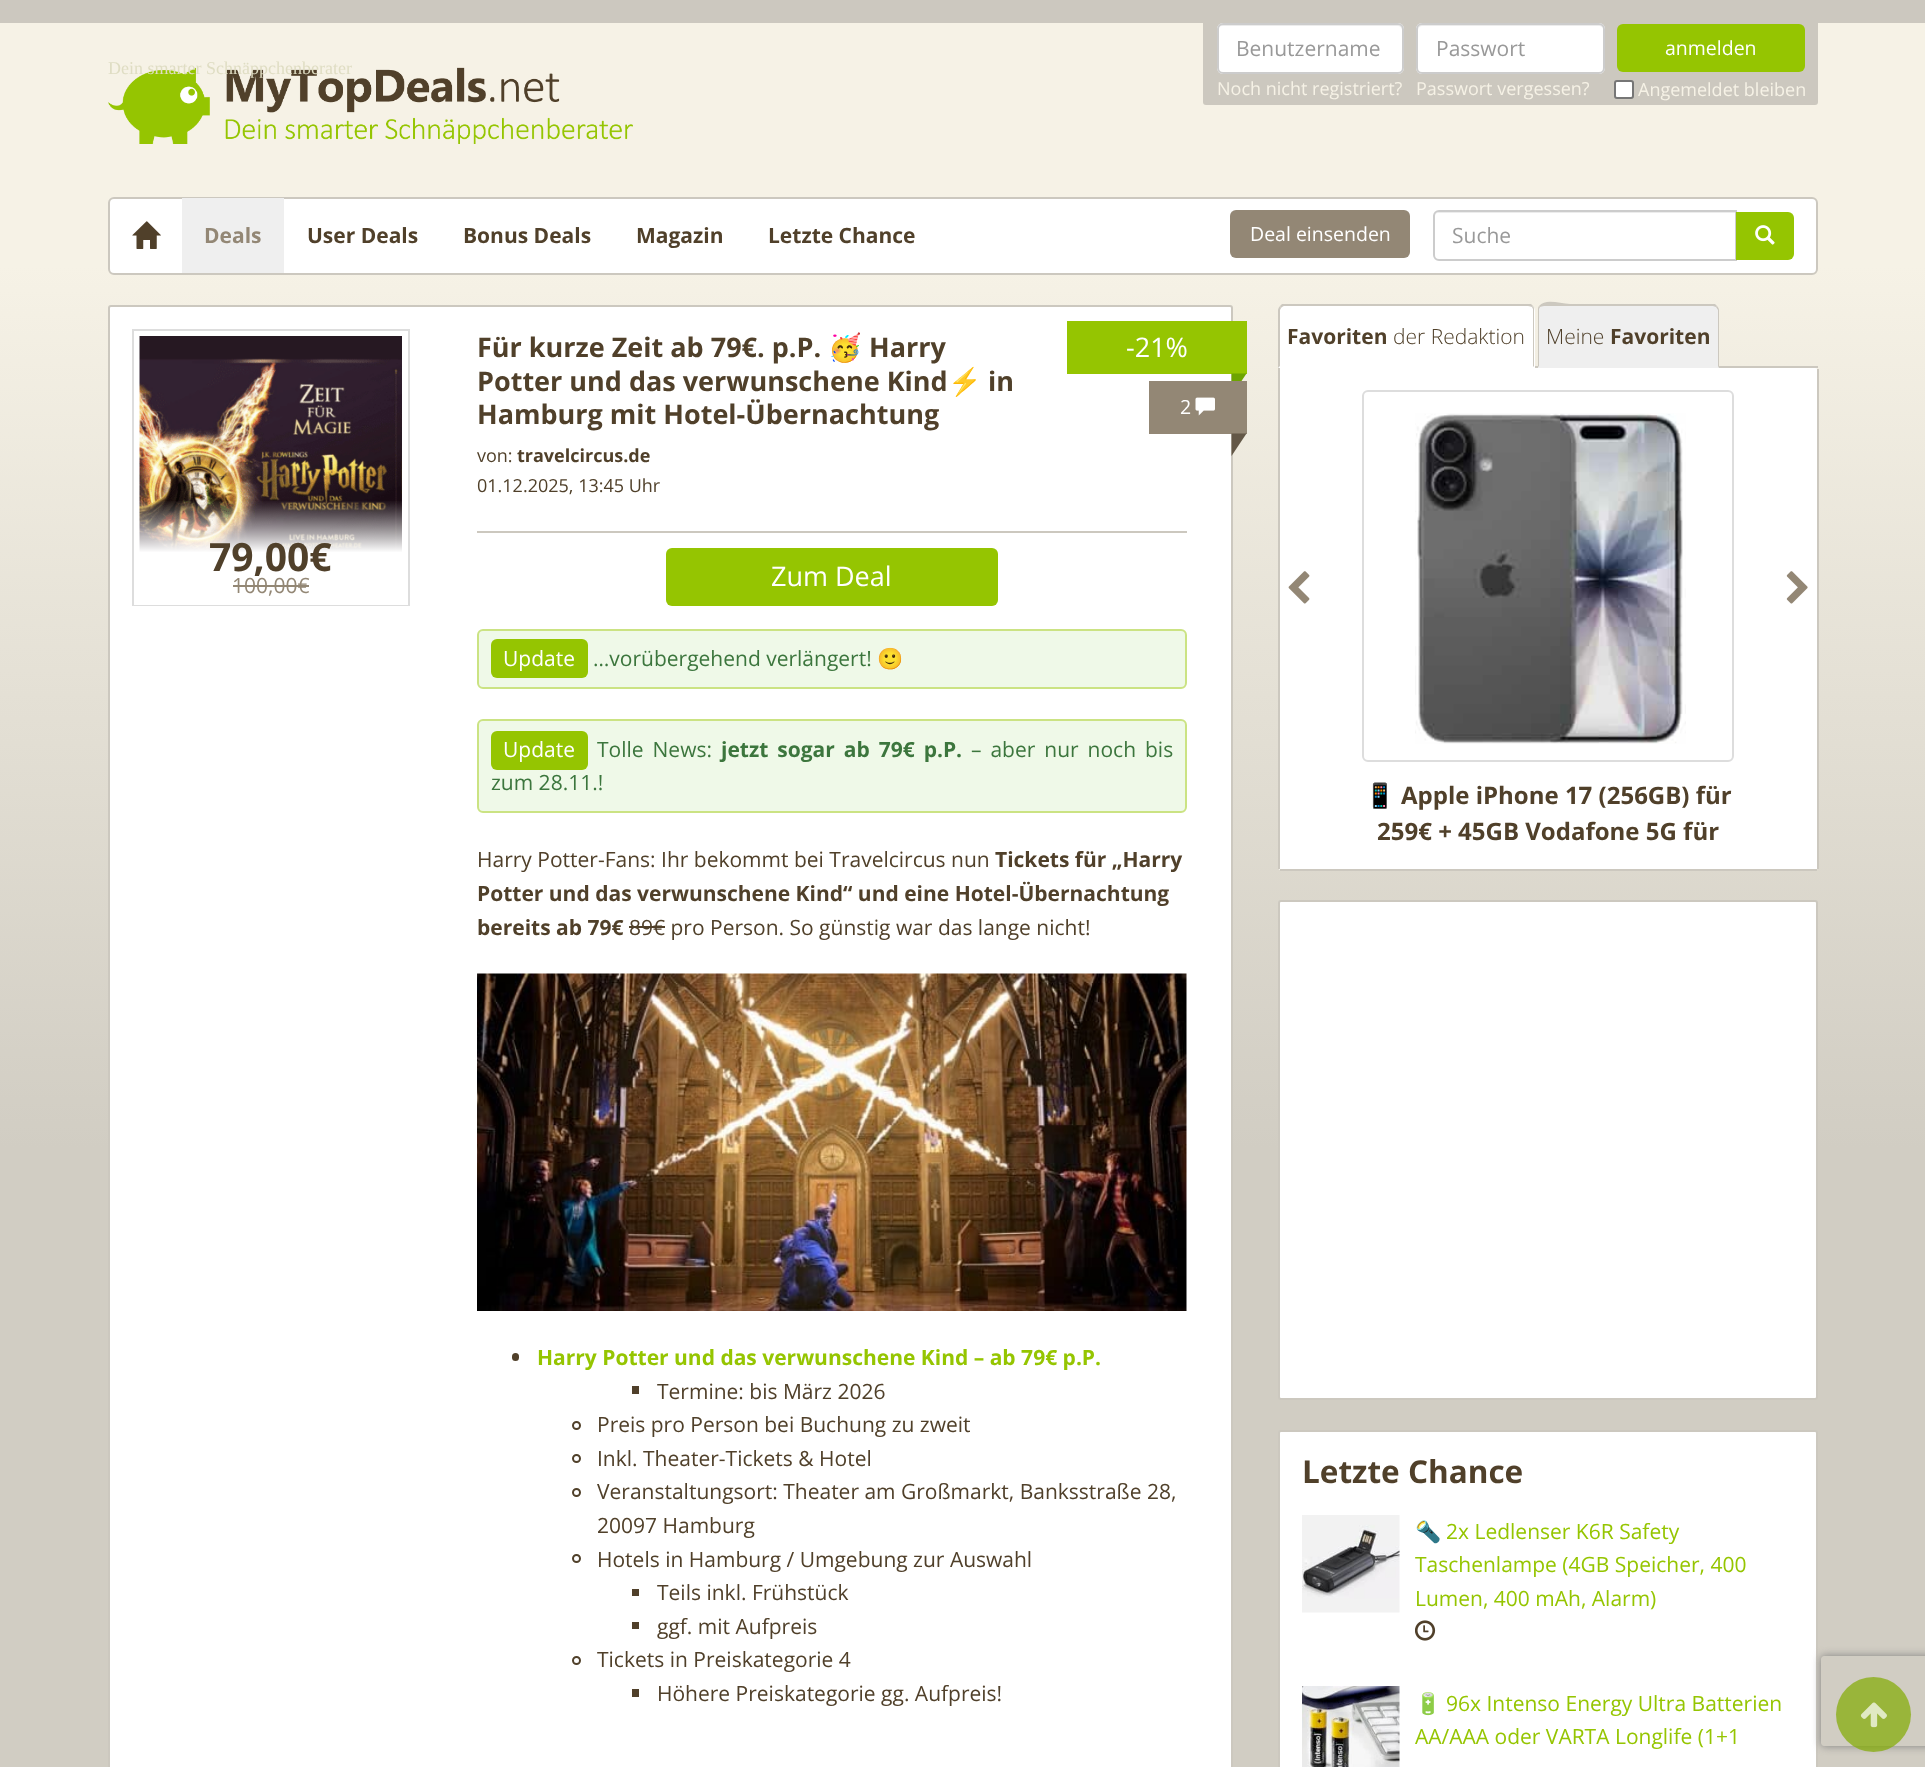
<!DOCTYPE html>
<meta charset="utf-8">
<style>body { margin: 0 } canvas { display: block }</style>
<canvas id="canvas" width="1925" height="1767"></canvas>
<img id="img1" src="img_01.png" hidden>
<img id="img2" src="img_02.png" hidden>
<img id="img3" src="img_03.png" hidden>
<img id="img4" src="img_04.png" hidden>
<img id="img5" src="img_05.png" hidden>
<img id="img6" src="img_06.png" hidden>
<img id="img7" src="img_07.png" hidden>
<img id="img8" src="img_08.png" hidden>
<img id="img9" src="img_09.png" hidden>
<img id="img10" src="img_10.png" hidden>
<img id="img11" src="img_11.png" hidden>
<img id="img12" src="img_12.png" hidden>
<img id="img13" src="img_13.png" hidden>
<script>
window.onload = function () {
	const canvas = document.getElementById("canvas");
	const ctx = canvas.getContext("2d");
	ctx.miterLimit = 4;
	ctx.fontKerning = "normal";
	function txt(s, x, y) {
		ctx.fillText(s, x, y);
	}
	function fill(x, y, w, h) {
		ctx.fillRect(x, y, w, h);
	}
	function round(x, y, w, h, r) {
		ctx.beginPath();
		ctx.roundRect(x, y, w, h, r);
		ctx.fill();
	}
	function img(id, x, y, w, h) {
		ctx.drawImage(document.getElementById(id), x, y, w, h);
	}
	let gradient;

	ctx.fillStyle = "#FFFFFF";
	fill(0, 0, 1925, 1767);
	gradient = ctx.createLinearGradient(963, 0, 963, 1767);
	gradient.addColorStop(0.15, "#F6F2E6");
	gradient.addColorStop(0.65, "#D1CDC3");
	ctx.fillStyle = gradient;
	fill(0, 23, 1925, 1744);
	ctx.fillStyle = "#CCC8BF";
	fill(0, 0, 1925, 23);
	ctx.beginPath();
	ctx.roundRect(1203, 0, 615, 105, [0, 0, 3, 3]);
	ctx.fill();
	ctx.fillStyle = "#FFFFFF";
	round(1217, 23, 187, 51, 6);
	ctx.fillStyle = "#ECECEC";
	ctx.beginPath();
	ctx.moveTo(1222, 26);
	ctx.lineTo(1398, 26);
	ctx.bezierCurveTo(1400, 26, 1402, 28, 1402, 30);
	ctx.lineTo(1402, 70);
	ctx.bezierCurveTo(1403, 69, 1403, 68, 1403, 67);
	ctx.lineTo(1403, 29);
	ctx.bezierCurveTo(1403, 26, 1401, 24, 1398, 24);
	ctx.lineTo(1223, 24);
	ctx.bezierCurveTo(1220, 24, 1218, 26, 1218, 29);
	ctx.lineTo(1218, 30);
	ctx.bezierCurveTo(1218, 28, 1220, 26, 1222, 26);
	ctx.closePath();
	ctx.fill();
	ctx.beginPath();
	ctx.roundRect(1218, 24, 185, 49, 5);
	ctx.strokeStyle = "#CCCCCC";
	ctx.lineWidth = 2;
	ctx.stroke();
	ctx.fillStyle = "#FFFFFF";
	round(1416, 23, 189, 51, 6);
	ctx.fillStyle = "#ECECEC";
	ctx.beginPath();
	ctx.moveTo(1422, 26);
	ctx.lineTo(1599, 26);
	ctx.bezierCurveTo(1601, 26, 1604, 28, 1604, 30);
	ctx.bezierCurveTo(1604, 27, 1603, 25, 1600, 24);
	ctx.lineTo(1422, 24);
	ctx.bezierCurveTo(1419, 25, 1418, 27, 1418, 30);
	ctx.bezierCurveTo(1418, 28, 1420, 26, 1422, 26);
	ctx.closePath();
	ctx.fill();
	ctx.beginPath();
	ctx.roundRect(1417, 24, 187, 49, 5);
	ctx.stroke();
	ctx.fillStyle = "#95C501";
	round(1617, 24, 188, 48, 6);
	ctx.fillStyle = "#FFFFFF";
	ctx.beginPath();
	ctx.roundRect(1615, 81, 18, 17, 2);
	ctx.fill();
	ctx.strokeStyle = "#767676";
	ctx.stroke();
	img("img1", 108, 67, 525, 77);
	ctx.beginPath();
	ctx.roundRect(109, 198, 1708, 76, 5);
	ctx.fill();
	ctx.strokeStyle = "#CCC8BF";
	ctx.stroke();
	img("img2", 132, 221, 29, 28);
	ctx.fillStyle = "#EFEFEF";
	fill(182, 198, 102, 75);
	ctx.fillStyle = "#938775";
	round(1230, 210, 180, 48, 6);
	ctx.fillStyle = "#ECECEC";
	ctx.beginPath();
	ctx.moveTo(1438, 213);
	ctx.lineTo(1736, 213);
	ctx.lineTo(1736, 212);
	ctx.lineTo(1439, 212);
	ctx.bezierCurveTo(1436, 212, 1434, 215, 1434, 218);
	ctx.bezierCurveTo(1434, 215, 1436, 213, 1438, 213);
	ctx.closePath();
	ctx.fill();
	ctx.beginPath();
	ctx.roundRect(1434, 211, 302, 49, [5, 0, 0, 5]);
	ctx.strokeStyle = "#CCCCCC";
	ctx.stroke();
	ctx.fillStyle = "#95C501";
	ctx.beginPath();
	ctx.roundRect(1736, 212, 58, 48, [0, 6, 6, 0]);
	ctx.fill();
	img("img3", 1755, 225, 20, 20);
	ctx.fillStyle = "#FFFFFF";
	ctx.beginPath();
	ctx.roundRect(109, 306, 1123, 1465, 2);
	ctx.fill();
	ctx.strokeStyle = "#CCC8BF";
	ctx.stroke();
	ctx.strokeStyle = "#DDDDDD";
	ctx.strokeRect(133, 330, 276, 275);
	img("img4", 139, 336, 263, 216);
	gradient = ctx.createLinearGradient(271, 500, 271, 605);
	gradient.addColorStop(0, "rgba(255, 255, 255, 0)");
	gradient.addColorStop(0.5, "#FFFFFF");
	ctx.fillStyle = gradient;
	fill(134, 501, 274, 104);
	ctx.fillStyle = "#938775";
	fill(233, 585, 76, 2);
	ctx.fillStyle = "#CCC8BF";
	fill(477, 531, 710, 2);
	ctx.fillStyle = "#95C501";
	round(666, 548, 332, 58, 6);
	ctx.fillStyle = "#EFF9E8";
	ctx.beginPath();
	ctx.roundRect(478, 630, 708, 58, 5);
	ctx.fill();
	ctx.strokeStyle = "#CBE383";
	ctx.stroke();
	ctx.fillStyle = "#95C501";
	round(491, 639, 97, 39, 6);
	ctx.fillStyle = "#EFF9E8";
	ctx.beginPath();
	ctx.roundRect(478, 720, 708, 92, 5);
	ctx.fill();
	ctx.stroke();
	ctx.fillStyle = "#95C501";
	round(491, 731, 97, 39, 6);
	ctx.fillStyle = "#50402A";
	fill(629, 926, 36, 2);
	img("img5", 477, 973, 710, 338);
	round(512, 1353, 7, 8, 3.5);
	fill(632, 1386, 7, 8);
	ctx.beginPath();
	ctx.arc(576.5, 1425.5, 3.5, 0, Math.PI * 2);
	ctx.strokeStyle = "#50402A";
	ctx.stroke();
	ctx.beginPath();
	ctx.arc(576.5, 1458.5, 3.5, 0, Math.PI * 2);
	ctx.stroke();
	ctx.beginPath();
	ctx.arc(576.5, 1492.5, 3.5, 0, Math.PI * 2);
	ctx.stroke();
	ctx.beginPath();
	ctx.arc(576.5, 1558.5, 3.5, 0, Math.PI * 2);
	ctx.stroke();
	fill(632, 1589, 7, 7);
	fill(632, 1622, 7, 7);
	ctx.beginPath();
	ctx.arc(576.5, 1660.5, 3.5, 0, Math.PI * 2);
	ctx.stroke();
	fill(632, 1689, 7, 8);
	ctx.fillStyle = "#95C501";
	fill(1067, 321, 180, 53);
	ctx.fillStyle = "#6DA400";
	ctx.beginPath();
	ctx.moveTo(1231.5, 373.5);
	ctx.lineTo(1246.5, 373.5);
	ctx.lineTo(1231.5, 396);
	ctx.closePath();
	ctx.fill();
	ctx.fillStyle = "#938775";
	fill(1149, 381, 98, 53);
	img("img6", 1195, 397, 20, 19);
	ctx.fillStyle = "#635747";
	ctx.beginPath();
	ctx.moveTo(1231.5, 433.5);
	ctx.lineTo(1246.5, 433.5);
	ctx.lineTo(1231.5, 456);
	ctx.closePath();
	ctx.fill();
	ctx.fillStyle = "#CCC8BF";
	fill(1535, 366, 283, 2);
	ctx.fillStyle = "#FFFFFF";
	ctx.beginPath();
	ctx.roundRect(1278, 305, 257, 63, [6, 6, 0, 0]);
	ctx.fill();
	ctx.fillStyle = "#CCC8BF";
	ctx.beginPath();
	ctx.moveTo(1284, 306);
	ctx.bezierCurveTo(1283, 306, 1282, 307, 1281, 308);
	ctx.lineTo(1280, 306);
	ctx.lineTo(1282, 304);
	ctx.lineTo(1531, 304);
	ctx.lineTo(1533, 306);
	ctx.lineTo(1532, 307);
	ctx.bezierCurveTo(1531, 307, 1530, 306, 1528, 306);
	ctx.closePath();
	ctx.fill();
	ctx.beginPath();
	ctx.moveTo(1533, 306);
	ctx.bezierCurveTo(1534, 307, 1534, 309, 1534, 310);
	ctx.lineTo(1534, 367);
	ctx.lineTo(1533, 366);
	ctx.lineTo(1533, 309);
	ctx.lineTo(1532, 307);
	ctx.closePath();
	ctx.fill();
	ctx.beginPath();
	ctx.moveTo(1278, 368);
	ctx.lineTo(1280, 366);
	ctx.lineTo(1280, 310);
	ctx.lineTo(1281, 308);
	ctx.lineTo(1280, 306);
	ctx.bezierCurveTo(1279, 307, 1278, 309, 1278, 310);
	ctx.closePath();
	ctx.fill();
	ctx.fillStyle = "#EFEFEF";
	ctx.beginPath();
	ctx.roundRect(1538, 305, 181, 63, [6, 6, 0, 0]);
	ctx.fill();
	ctx.fillStyle = "#CCC8BF";
	ctx.beginPath();
	ctx.moveTo(1544, 306);
	ctx.bezierCurveTo(1542, 306, 1541, 307, 1540, 307);
	ctx.lineTo(1539, 306);
	ctx.bezierCurveTo(1546, 298, 1560, 304, 1570, 304);
	ctx.lineTo(1715, 304);
	ctx.lineTo(1717, 306);
	ctx.lineTo(1716, 307);
	ctx.lineTo(1713, 306);
	ctx.closePath();
	ctx.fill();
	ctx.beginPath();
	ctx.moveTo(1719, 368);
	ctx.lineTo(1719, 310);
	ctx.bezierCurveTo(1719, 309, 1718, 307, 1717, 306);
	ctx.lineTo(1716, 307);
	ctx.lineTo(1718, 310);
	ctx.lineTo(1718, 366);
	ctx.closePath();
	ctx.fill();
	ctx.beginPath();
	ctx.moveTo(1538, 367);
	ctx.lineTo(1538, 310);
	ctx.bezierCurveTo(1538, 309, 1538, 307, 1539, 306);
	ctx.lineTo(1540, 307);
	ctx.lineTo(1539, 309);
	ctx.lineTo(1539, 366);
	ctx.closePath();
	ctx.fill();
	ctx.fillStyle = "#FFFFFF";
	ctx.beginPath();
	ctx.roundRect(1278, 368, 540, 502, [0, 3, 3, 3]);
	ctx.fill();
	ctx.fillStyle = "#CCC8BF";
	fill(1817, 369, 2, 500);
	fill(1280, 869, 537, 2);
	fill(1278, 368, 2, 501);
	img("img7", 1288, 571, 22, 33);
	img("img8", 1786, 571, 22, 33);
	ctx.beginPath();
	ctx.roundRect(1363, 391, 370, 370, 5);
	ctx.strokeStyle = "#DDDDDD";
	ctx.stroke();
	img("img9", 1415, 413, 271, 331);
	ctx.fillStyle = "#FFFFFF";
	ctx.beginPath();
	ctx.roundRect(1279, 901, 538, 498, 2);
	ctx.fill();
	ctx.strokeStyle = "#CCC8BF";
	ctx.stroke();
	ctx.beginPath();
	ctx.roundRect(1279, 1431, 538, 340, 2);
	ctx.fill();
	ctx.stroke();
	img("img10", 1302, 1515, 98, 98);
	img("img11", 1415, 1620, 21, 21);
	img("img12", 1302, 1686, 98, 81);
	ctx.save();
	ctx.beginPath();
	ctx.moveTo(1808, 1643);
	ctx.lineTo(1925, 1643);
	ctx.lineTo(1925, 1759);
	ctx.lineTo(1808, 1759);
	ctx.closePath();
	ctx.moveTo(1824, 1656);
	ctx.lineTo(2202, 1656);
	ctx.bezierCurveTo(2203.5, 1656, 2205, 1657.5, 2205, 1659);
	ctx.lineTo(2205, 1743);
	ctx.bezierCurveTo(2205, 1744.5, 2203.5, 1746, 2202, 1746);
	ctx.lineTo(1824, 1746);
	ctx.bezierCurveTo(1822.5, 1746, 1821, 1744.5, 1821, 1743);
	ctx.lineTo(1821, 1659);
	ctx.bezierCurveTo(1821, 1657.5, 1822.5, 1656, 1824, 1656);
	ctx.closePath();
	ctx.clip("evenodd");
	ctx.fillStyle = "#808080";
	ctx.filter = "blur(4px)";
	ctx.beginPath();
	ctx.roundRect(1821, 1656, 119, 90, 3);
	ctx.fill();
	ctx.filter = "none";
	ctx.restore();
	ctx.fillStyle = "rgba(129, 171, 0, 0.7)";
	ctx.beginPath();
	ctx.arc(1873.5, 1714.5, 37.5, 0, Math.PI * 2);
	ctx.fill();
	img("img13", 1860, 1702, 27, 26);
	ctx.font = "21px Open Sans";
	ctx.fillStyle = "#999999";
	txt("Benutzername", 1236, 56);
	txt("Passwort", 1436, 56);
	ctx.font = "19.5px Open Sans";
	ctx.fillStyle = "#FFFFFF";
	txt("anmelden", 1665, 55);
	ctx.font = "18px Open Sans";
	ctx.fillStyle = "#F6F2E6";
	txt("Noch nicht registriert?", 1217, 95);
	txt("Passwort vergessen?", 1416, 95);
	txt("Angemeldet bleiben", 1638, 96);
	ctx.font = "18px Liberation Serif";
	ctx.fillStyle = "#DFDDC3";
	txt("Dein smarter Schnäppchenberater", 108, 74);
	ctx.font = "bold 21px Open Sans";
	ctx.fillStyle = "#938775";
	txt("Deals", 204, 243);
	ctx.fillStyle = "#50402A";
	txt("User Deals", 307, 243);
	txt("Bonus Deals", 463, 243);
	txt("Magazin", 636, 243);
	txt("Letzte Chance", 768, 243);
	ctx.font = "19.5px Open Sans";
	ctx.fillStyle = "#FFFFFF";
	txt("Deal einsenden", 1250, 241);
	ctx.font = "21px Open Sans";
	ctx.fillStyle = "#999999";
	txt("Suche", 1452, 243);
	ctx.font = "bold 39px Open Sans";
	ctx.fillStyle = "#50402A";
	txt("79,00€", 209, 571);
	ctx.font = "21px Open Sans";
	ctx.fillStyle = "#938775";
	txt("100,00€", 232, 593);
	ctx.font = "bold 27px Open Sans";
	ctx.fillStyle = "#50402A";
	txt("Für kurze Zeit ab 79€. p.P.", 477, 357);
	ctx.font = "bold 27px Noto Color Emoji";
	txt("🥳", 828, 357);
	ctx.font = "bold 27px Open Sans";
	txt("Harry", 869, 357);
	txt("Potter und das verwunschene Kind", 477, 391);
	ctx.font = "bold 27px Noto Color Emoji";
	txt("⚡️", 948, 391);
	ctx.font = "bold 27px Open Sans";
	txt("in", 988, 391);
	txt("Hamburg mit Hotel-Übernachtung", 477, 424);
	ctx.font = "18px Open Sans";
	txt("von:", 477, 462);
	ctx.font = "bold 18px Open Sans";
	txt("travelcircus.de", 517, 462);
	ctx.font = "18px Open Sans";
	txt("01.12.2025, 13:45 Uhr", 477, 492);
	ctx.font = "27px Open Sans";
	ctx.fillStyle = "#FFFFFF";
	txt("Zum Deal", 771, 586);
	ctx.font = "21px Open Sans";
	txt("Update", 503, 666);
	ctx.fillStyle = "#3C763D";
	txt("…vorübergehend verlängert!", 593, 666);
	ctx.font = "21px Noto Color Emoji";
	txt("🙂", 877, 666);
	ctx.font = "21px Open Sans";
	ctx.fillStyle = "#FFFFFF";
	txt("Update", 503, 757);
	ctx.wordSpacing = "3.5px";
	ctx.fillStyle = "#3C763D";
	txt("Tolle News:", 597, 757);
	ctx.font = "bold 21px Open Sans";
	txt("jetzt sogar ab 79€ p.P.", 721, 757);
	ctx.font = "21px Open Sans";
	txt("– aber nur noch bis", 971, 757);
	ctx.wordSpacing = "0px";
	txt("zum 28.11.!", 491, 790);
	ctx.fillStyle = "#50402A";
	txt("Harry Potter-Fans: Ihr bekommt bei Travelcircus nun", 477, 867);
	ctx.font = "bold 21px Open Sans";
	txt("Tickets für „Harry", 995, 867);
	txt("Potter und das verwunschene Kind“ und eine Hotel-Übernachtung", 477, 901);
	txt("bereits ab 79€", 477, 935);
	ctx.font = "21px Open Sans";
	txt("89€ pro Person. So günstig war das lange nicht!", 629, 935);
	ctx.font = "bold 21px Open Sans";
	ctx.fillStyle = "#95C501";
	txt("Harry Potter und das verwunschene Kind – ab 79€ p.P.", 537, 1365);
	ctx.font = "21px Open Sans";
	ctx.fillStyle = "#50402A";
	txt("Termine: bis März 2026", 657, 1399);
	txt("Preis pro Person bei Buchung zu zweit", 597, 1432);
	txt("Inkl. Theater-Tickets & Hotel", 597, 1466);
	txt("Veranstaltungsort: Theater am Großmarkt, Banksstraße 28,", 597, 1499);
	txt("20097 Hamburg", 597, 1533);
	txt("Hotels in Hamburg / Umgebung zur Auswahl", 597, 1567);
	txt("Teils inkl. Frühstück", 657, 1600);
	txt("ggf. mit Aufpreis", 657, 1634);
	txt("Tickets in Preiskategorie 4", 597, 1667);
	txt("Höhere Preiskategorie gg. Aufpreis!", 657, 1701);
	ctx.font = "27px Open Sans";
	ctx.fillStyle = "#FFFFFF";
	txt("-21%", 1126, 357);
	ctx.font = "19.5px Open Sans";
	txt("2", 1180, 414);
	ctx.font = "bold 21px Open Sans";
	ctx.fillStyle = "#50402A";
	txt("Favoriten", 1287, 344);
	ctx.font = "300 21px Open Sans";
	txt("der Redaktion", 1393, 344);
	txt("Meine", 1546, 344);
	ctx.font = "bold 21px Open Sans";
	txt("Favoriten", 1610, 344);
	ctx.font = "bold 24px Noto Color Emoji";
	txt("📱", 1365, 804);
	ctx.font = "bold 24px Open Sans";
	txt("Apple iPhone 17 (256GB) für", 1401, 804);
	txt("259€ + 45GB Vodafone 5G für", 1377, 840);
	ctx.font = "bold 31.5px Open Sans";
	txt("Letzte Chance", 1302, 1483);
	ctx.save();
	ctx.beginPath();
	ctx.rect(1415, 1515, 379, 149);
	ctx.clip();
	ctx.font = "21px Noto Color Emoji";
	ctx.fillStyle = "#95C501";
	txt("🔦", 1415, 1539);
	ctx.restore();
	ctx.font = "21px Open Sans";
	ctx.fillStyle = "#95C501";
	txt("2x Ledlenser K6R Safety", 1446, 1539);
	txt("Taschenlampe (4GB Speicher, 400", 1415, 1572);
	txt("Lumen, 400 mAh, Alarm)", 1415, 1606);
	ctx.save();
	ctx.beginPath();
	ctx.rect(1415, 1686, 379, 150);
	ctx.clip();
	ctx.font = "21px Noto Color Emoji";
	txt("🔋", 1415, 1711);
	ctx.restore();
	txt("96x Intenso Energy Ultra Batterien", 1446, 1711);
	txt("AA/AAA oder VARTA Longlife (1+1", 1415, 1744);
};
</script>
